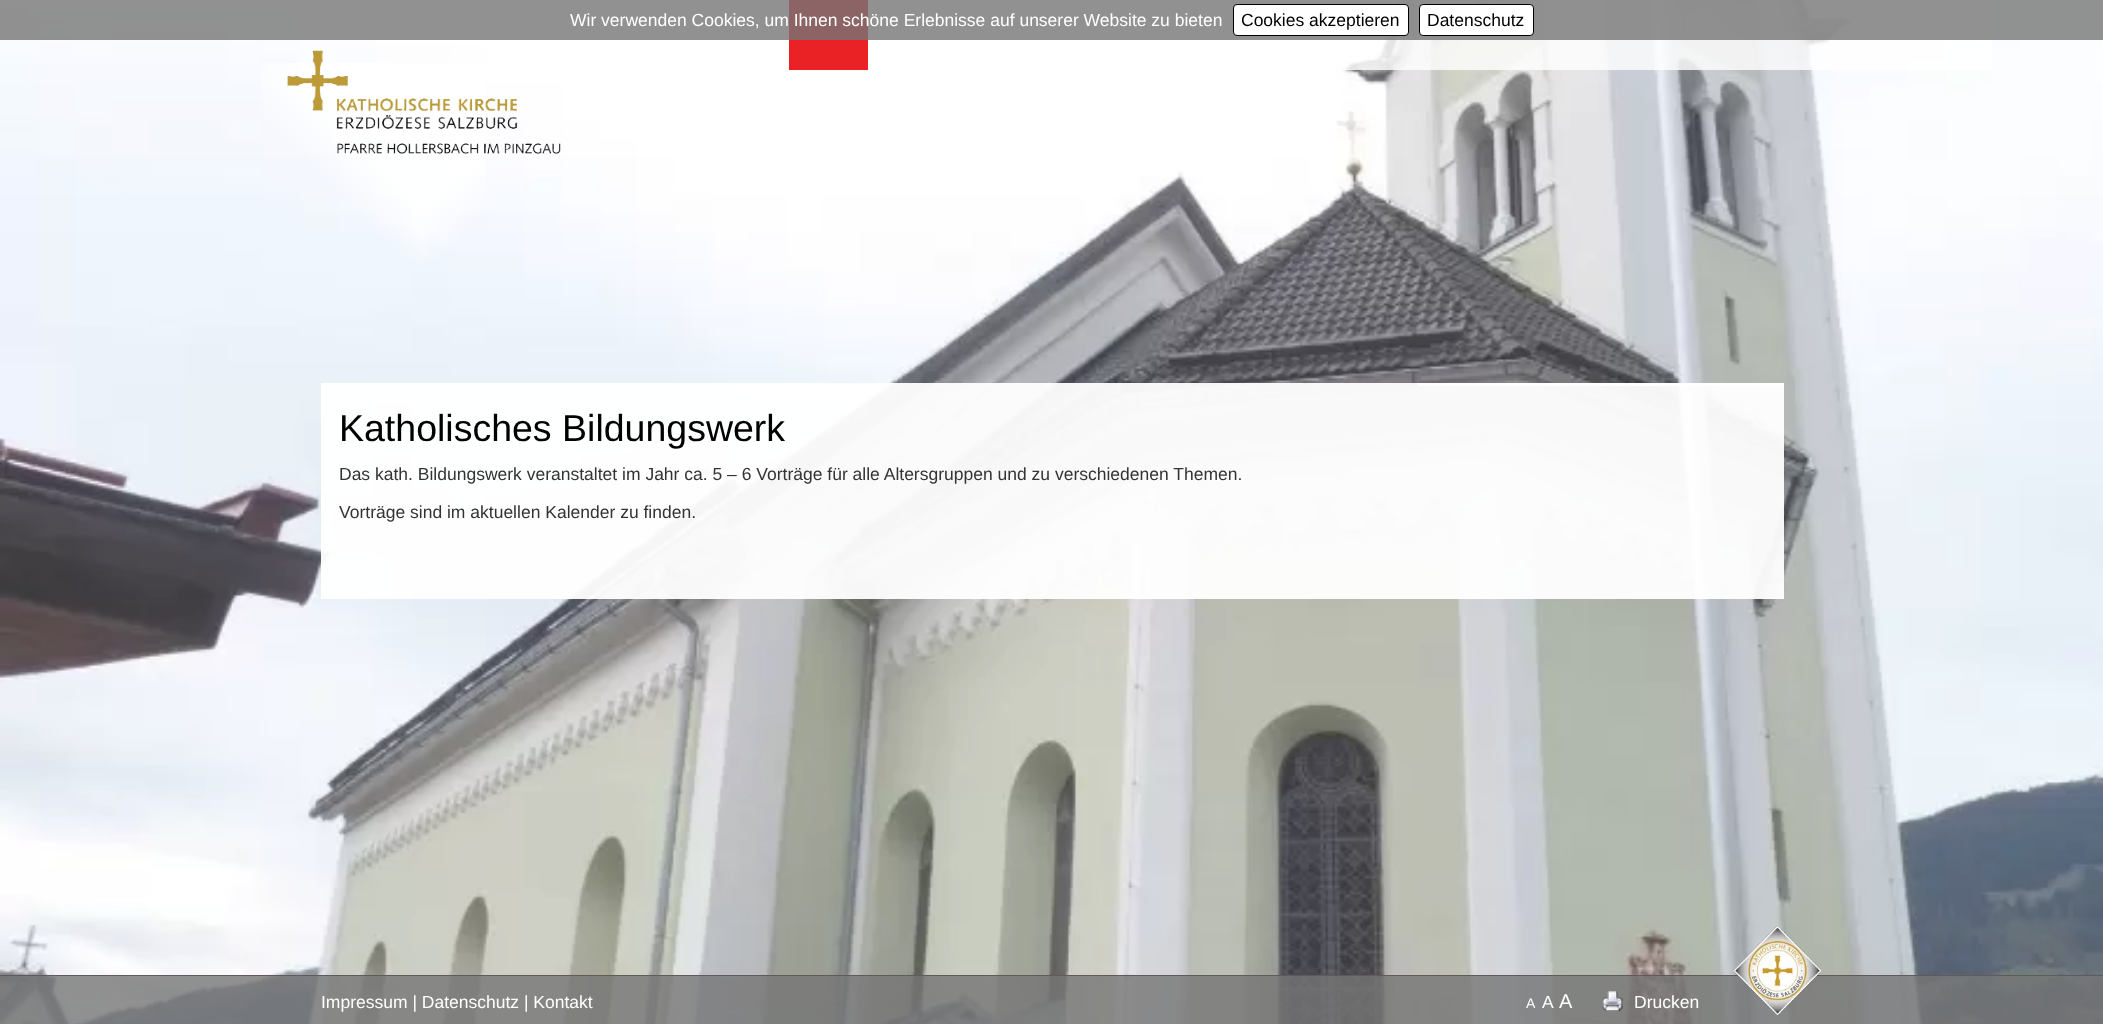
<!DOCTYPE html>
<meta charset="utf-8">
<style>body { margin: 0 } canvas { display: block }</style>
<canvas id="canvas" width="2103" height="1024"></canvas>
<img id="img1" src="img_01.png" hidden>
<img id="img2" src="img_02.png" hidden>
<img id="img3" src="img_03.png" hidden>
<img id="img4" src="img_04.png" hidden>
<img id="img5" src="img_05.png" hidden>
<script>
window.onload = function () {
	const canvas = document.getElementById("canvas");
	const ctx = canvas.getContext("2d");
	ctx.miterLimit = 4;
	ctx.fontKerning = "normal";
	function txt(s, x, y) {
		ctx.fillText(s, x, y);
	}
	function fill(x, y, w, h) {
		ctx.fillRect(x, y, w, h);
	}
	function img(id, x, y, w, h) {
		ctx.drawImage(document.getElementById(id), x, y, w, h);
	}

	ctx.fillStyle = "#FFFFFF";
	fill(0, 0, 2103, 1024);
	img("img1", 0, 0, 2103, 1024);
	ctx.fillStyle = "#EA2125";
	fill(789, 0, 79, 70);
	img("img2", 261, 63, 225, 196);
	img("img3", 287, 50, 274, 104);
	ctx.fillStyle = "rgba(255, 255, 255, 0.8)";
	fill(1343, 0, 649, 70);
	ctx.fillStyle = "rgba(117, 117, 117, 0.8)";
	fill(0, 0, 2103, 40);
	ctx.fillStyle = "#FFFFFF";
	ctx.beginPath();
	ctx.roundRect(1233.5, 4.5, 175, 31, 3.5);
	ctx.fill();
	ctx.strokeStyle = "#000000";
	ctx.stroke();
	ctx.beginPath();
	ctx.roundRect(1419.5, 4.5, 114, 31, 3.5);
	ctx.fill();
	ctx.stroke();
	ctx.fillStyle = "rgba(255, 255, 255, 0.95)";
	fill(321, 383, 1463, 216);
	ctx.fillStyle = "#FFFFFF";
	fill(1418, 383, 366, 3);
	ctx.fillStyle = "rgba(117, 117, 117, 0.8)";
	fill(0, 976, 2103, 48);
	ctx.fillStyle = "#62595B";
	fill(0, 975, 2103, 1);
	img("img4", 1602, 991, 21, 21);
	img("img5", 1733, 926, 89, 89);
	ctx.font = "17.5px Liberation Sans";
	ctx.fillStyle = "#FFFFFF";
	txt("Wir verwenden Cookies, um Ihnen schöne Erlebnisse auf unserer Website zu bieten", 570, 26);
	ctx.fillStyle = "#000000";
	txt("Cookies akzeptieren", 1241, 26);
	txt("Datenschutz", 1427, 26);
	ctx.font = "37.5px Liberation Sans";
	txt("Katholisches Bildungswerk", 339, 441);
	ctx.font = "17.5px Liberation Sans";
	ctx.fillStyle = "#333333";
	txt("Das kath. Bildungswerk veranstaltet im Jahr ca. 5 – 6 Vorträge für alle Altersgruppen und zu verschiedenen Themen.", 339, 480);
	txt("Vorträge sind im aktuellen Kalender zu finden.", 339, 518);
	ctx.fillStyle = "#FFFFFF";
	txt("Impressum | Datenschutz | Kontakt", 321, 1008);
	ctx.font = "14px Liberation Sans";
	txt("A", 1526, 1008);
	ctx.font = "17.5px Liberation Sans";
	txt("A", 1542, 1008);
	ctx.font = "20px Liberation Sans";
	txt("A", 1559, 1008);
	ctx.font = "17.5px Liberation Sans";
	txt("Drucken", 1634, 1008);
};
</script>
